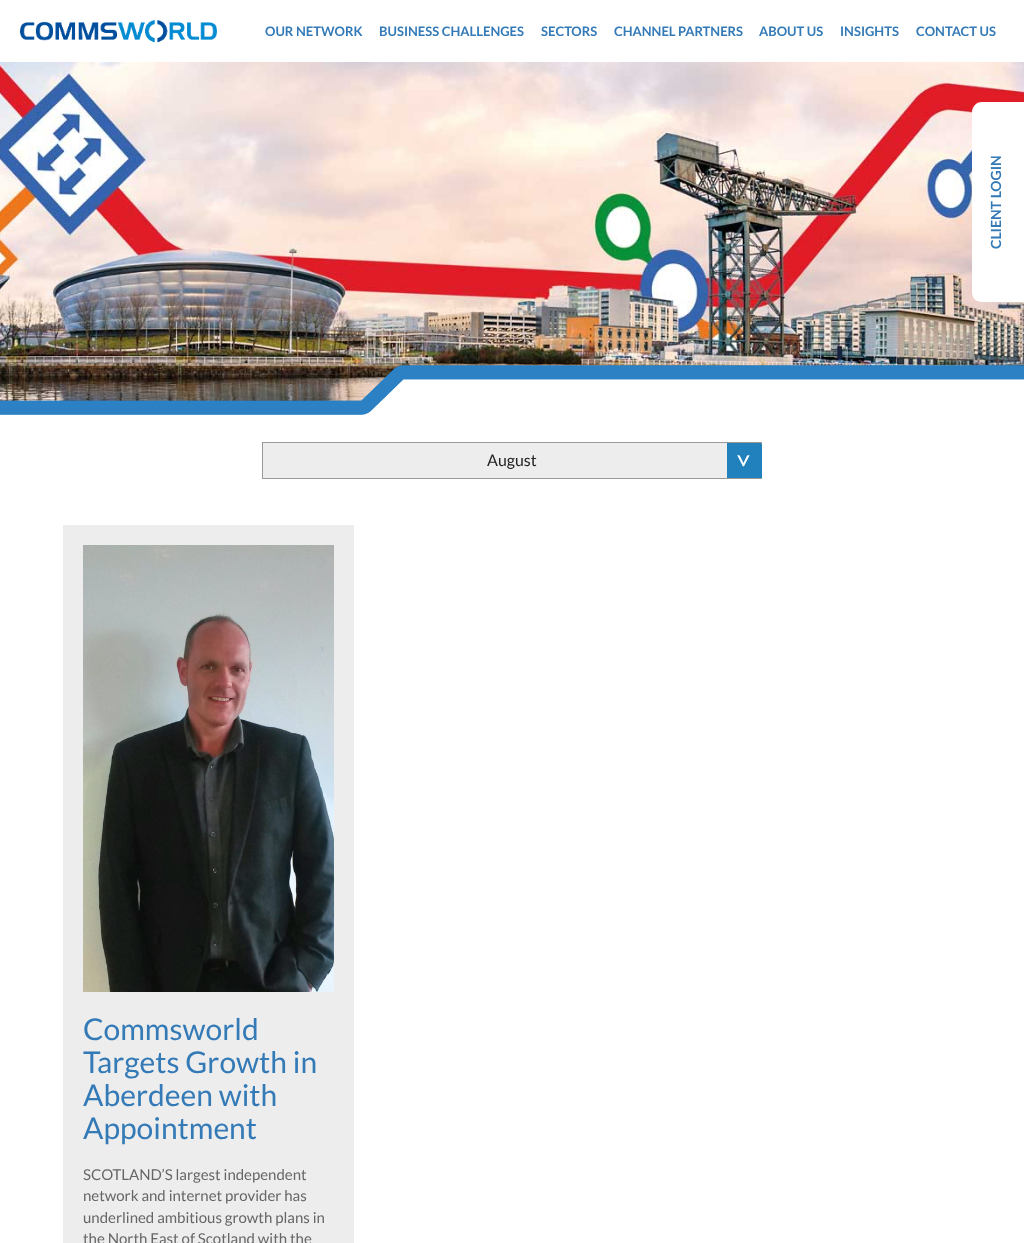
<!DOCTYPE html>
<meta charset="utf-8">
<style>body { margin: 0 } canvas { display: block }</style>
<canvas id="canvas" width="1024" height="1243"></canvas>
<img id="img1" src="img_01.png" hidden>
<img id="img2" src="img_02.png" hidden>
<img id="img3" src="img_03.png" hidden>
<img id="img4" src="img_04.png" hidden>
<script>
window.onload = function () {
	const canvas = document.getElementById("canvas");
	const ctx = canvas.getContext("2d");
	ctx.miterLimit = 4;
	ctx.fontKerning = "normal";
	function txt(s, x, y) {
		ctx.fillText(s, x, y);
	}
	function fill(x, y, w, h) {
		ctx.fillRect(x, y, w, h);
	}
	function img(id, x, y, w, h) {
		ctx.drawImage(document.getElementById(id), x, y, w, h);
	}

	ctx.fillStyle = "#FFFFFF";
	fill(0, 0, 1024, 1243);
	img("img1", 20, 20, 197, 23);
	img("img2", 0, 62, 1024, 339);
	ctx.beginPath();
	ctx.moveTo(972, 292);
	ctx.lineTo(972, 112);
	ctx.bezierCurveTo(972, 107, 976, 102, 982, 102);
	ctx.lineTo(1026, 102);
	ctx.lineTo(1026, 302);
	ctx.lineTo(982, 302);
	ctx.bezierCurveTo(976, 302, 972, 298, 972, 292);
	ctx.closePath();
	ctx.fill();
	img("img3", 0, 365, 1024, 50);
	ctx.fillStyle = "#EDEDED";
	fill(263, 443, 464, 35);
	ctx.strokeStyle = "#999999";
	ctx.strokeRect(262.5, 442.5, 499, 36);
	ctx.fillStyle = "#2181BC";
	fill(727, 443, 34, 1);
	fill(727, 444, 35, 34);
	ctx.fillStyle = "#EDEDED";
	fill(63, 525, 291, 718);
	img("img4", 83, 545, 251, 447);
	ctx.font = "bold 13px Lato";
	ctx.fillStyle = "#337AB7";
	txt("OUR NETWORK", 265, 36);
	txt("BUSINESS CHALLENGES", 379, 36);
	txt("SECTORS", 541, 36);
	txt("CHANNEL PARTNERS", 614, 36);
	txt("ABOUT US", 759, 36);
	txt("INSIGHTS", 840, 36);
	txt("CONTACT US", 916, 36);
	ctx.font = "bold 14px Lato";
	ctx.save();
	ctx.translate(1001, 249);
	ctx.rotate(-90 * Math.PI / 180);
	ctx.fillText("CLIENT LOGIN", 0, 0);
	ctx.restore();
	ctx.font = "16px Lato";
	ctx.fillStyle = "#222222";
	txt("August", 487, 466);
	ctx.font = "28px Lato";
	ctx.fillStyle = "#FFFFFF";
	ctx.save();
	ctx.translate(734, 452);
	ctx.rotate(90 * Math.PI / 180);
	ctx.fillText(">", 0, 0);
	ctx.restore();
	ctx.font = "30px Lato";
	ctx.fillStyle = "#337AB7";
	txt("Commsworld", 83, 1040);
	txt("Targets Growth in", 83, 1073);
	txt("Aberdeen with", 83, 1106);
	txt("Appointment", 83, 1139);
	ctx.font = "15px Lato";
	ctx.fillStyle = "#666666";
	txt("SCOTLAND’S largest independent", 83, 1180);
	txt("network and internet provider has", 83, 1201);
	txt("underlined ambitious growth plans in", 83, 1223);
	txt("the North East of Scotland with the", 83, 1244);
};
</script>
